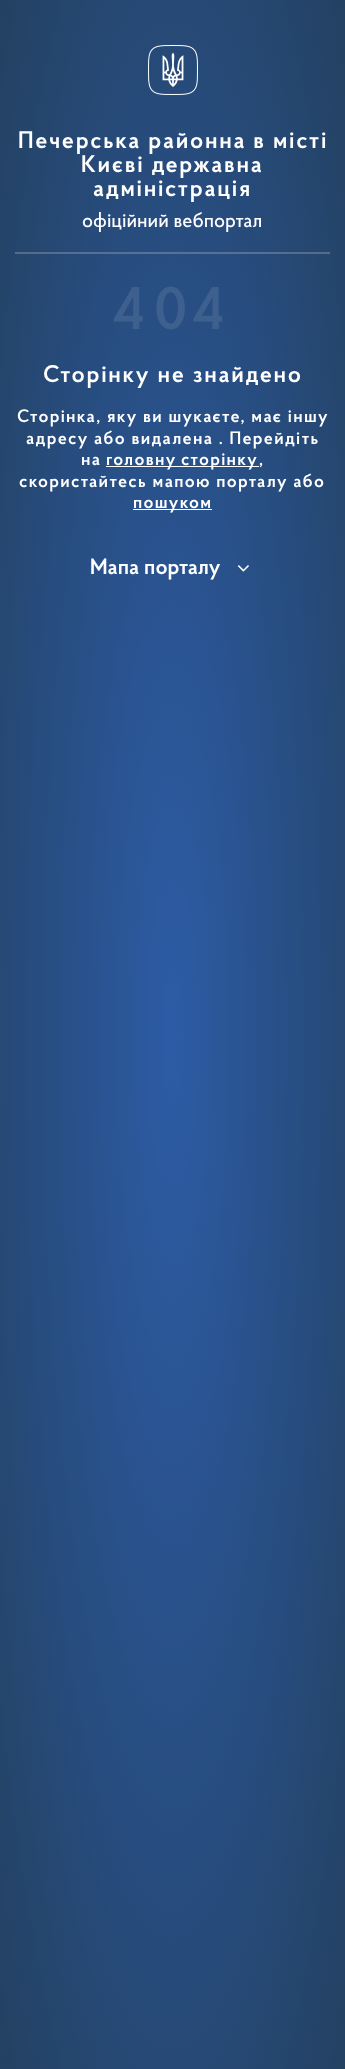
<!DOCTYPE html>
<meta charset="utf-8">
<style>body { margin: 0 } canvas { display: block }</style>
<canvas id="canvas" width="345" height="2069"></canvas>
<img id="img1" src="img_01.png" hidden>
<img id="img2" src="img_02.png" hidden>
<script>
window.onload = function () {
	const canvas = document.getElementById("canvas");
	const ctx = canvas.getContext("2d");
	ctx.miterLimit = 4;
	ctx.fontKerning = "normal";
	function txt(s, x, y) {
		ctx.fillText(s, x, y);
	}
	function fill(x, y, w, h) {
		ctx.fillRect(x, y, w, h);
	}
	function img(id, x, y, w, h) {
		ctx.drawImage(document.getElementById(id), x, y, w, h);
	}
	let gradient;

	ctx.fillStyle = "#FFFFFF";
	fill(0, 0, 345, 2069);
	gradient = ctx.createRadialGradient(173, 172.62, 0, 173, 172.62, 244);
	gradient.addColorStop(0, "#2D5CA6");
	gradient.addColorStop(1, "#234161");
	ctx.fillStyle = gradient;
	ctx.beginPath();
	ctx.rect(0, 0, 345, 2069);
	ctx.save();
	ctx.clip();
	ctx.scale(1, 1463 / 244);
	ctx.fillRect(0, 0, 345, 346);
	ctx.restore();
	gradient = ctx.createRadialGradient(173, 172.62, 0, 173, 172.62, 244);
	gradient.addColorStop(0, "#5A7BB1");
	gradient.addColorStop(1, "#536981");
	ctx.fillStyle = gradient;
	ctx.beginPath();
	ctx.rect(15, 252, 315, 2);
	ctx.save();
	ctx.clip();
	ctx.scale(1, 1463 / 244);
	ctx.fillRect(0, 0, 345, 346);
	ctx.restore();
	img("img1", 148, 45, 50, 50);
	ctx.fillStyle = "#FFFFFF";
	fill(106, 466, 153, 1);
	fill(133, 509, 79, 1);
	img("img2", 237, 565, 12, 7);
	ctx.letterSpacing = "1.7px";
	ctx.font = "600 24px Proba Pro";
	txt("Печерська районна в місті", 18, 148);
	txt("Києві державна", 81, 172);
	txt("адміністрація", 93, 196);
	ctx.letterSpacing = "0px";
	ctx.font = "500 20px Proba Pro";
	txt("офіційний вебпортал", 82, 227);
	ctx.letterSpacing = "8px";
	ctx.font = "600 60px Proba Pro";
	ctx.fillStyle = "#3E608F";
	txt("404", 112, 329);
	ctx.letterSpacing = "1.7px";
	ctx.font = "600 24px Proba Pro";
	ctx.fillStyle = "#FFFFFF";
	txt("Сторінку не знайдено", 43, 382);
	ctx.letterSpacing = "1.3px";
	ctx.font = "600 18px Proba Pro";
	txt("Сторінка, яку ви шукаєте, має іншу", 17, 422);
	txt("адресу або видалена . Перейдіть", 26, 444);
	txt("на", 81, 465);
	ctx.wordSpacing = "-1px";
	txt("головну сторінку", 106, 465);
	ctx.wordSpacing = "0px";
	txt(",", 259, 465);
	txt("скористайтесь мапою порталу або", 19, 487);
	txt("пошуком", 133, 508);
	ctx.letterSpacing = "0px";
	ctx.font = "600 22px Proba Pro";
	txt("Мапа порталу", 90, 574);
};
</script>
